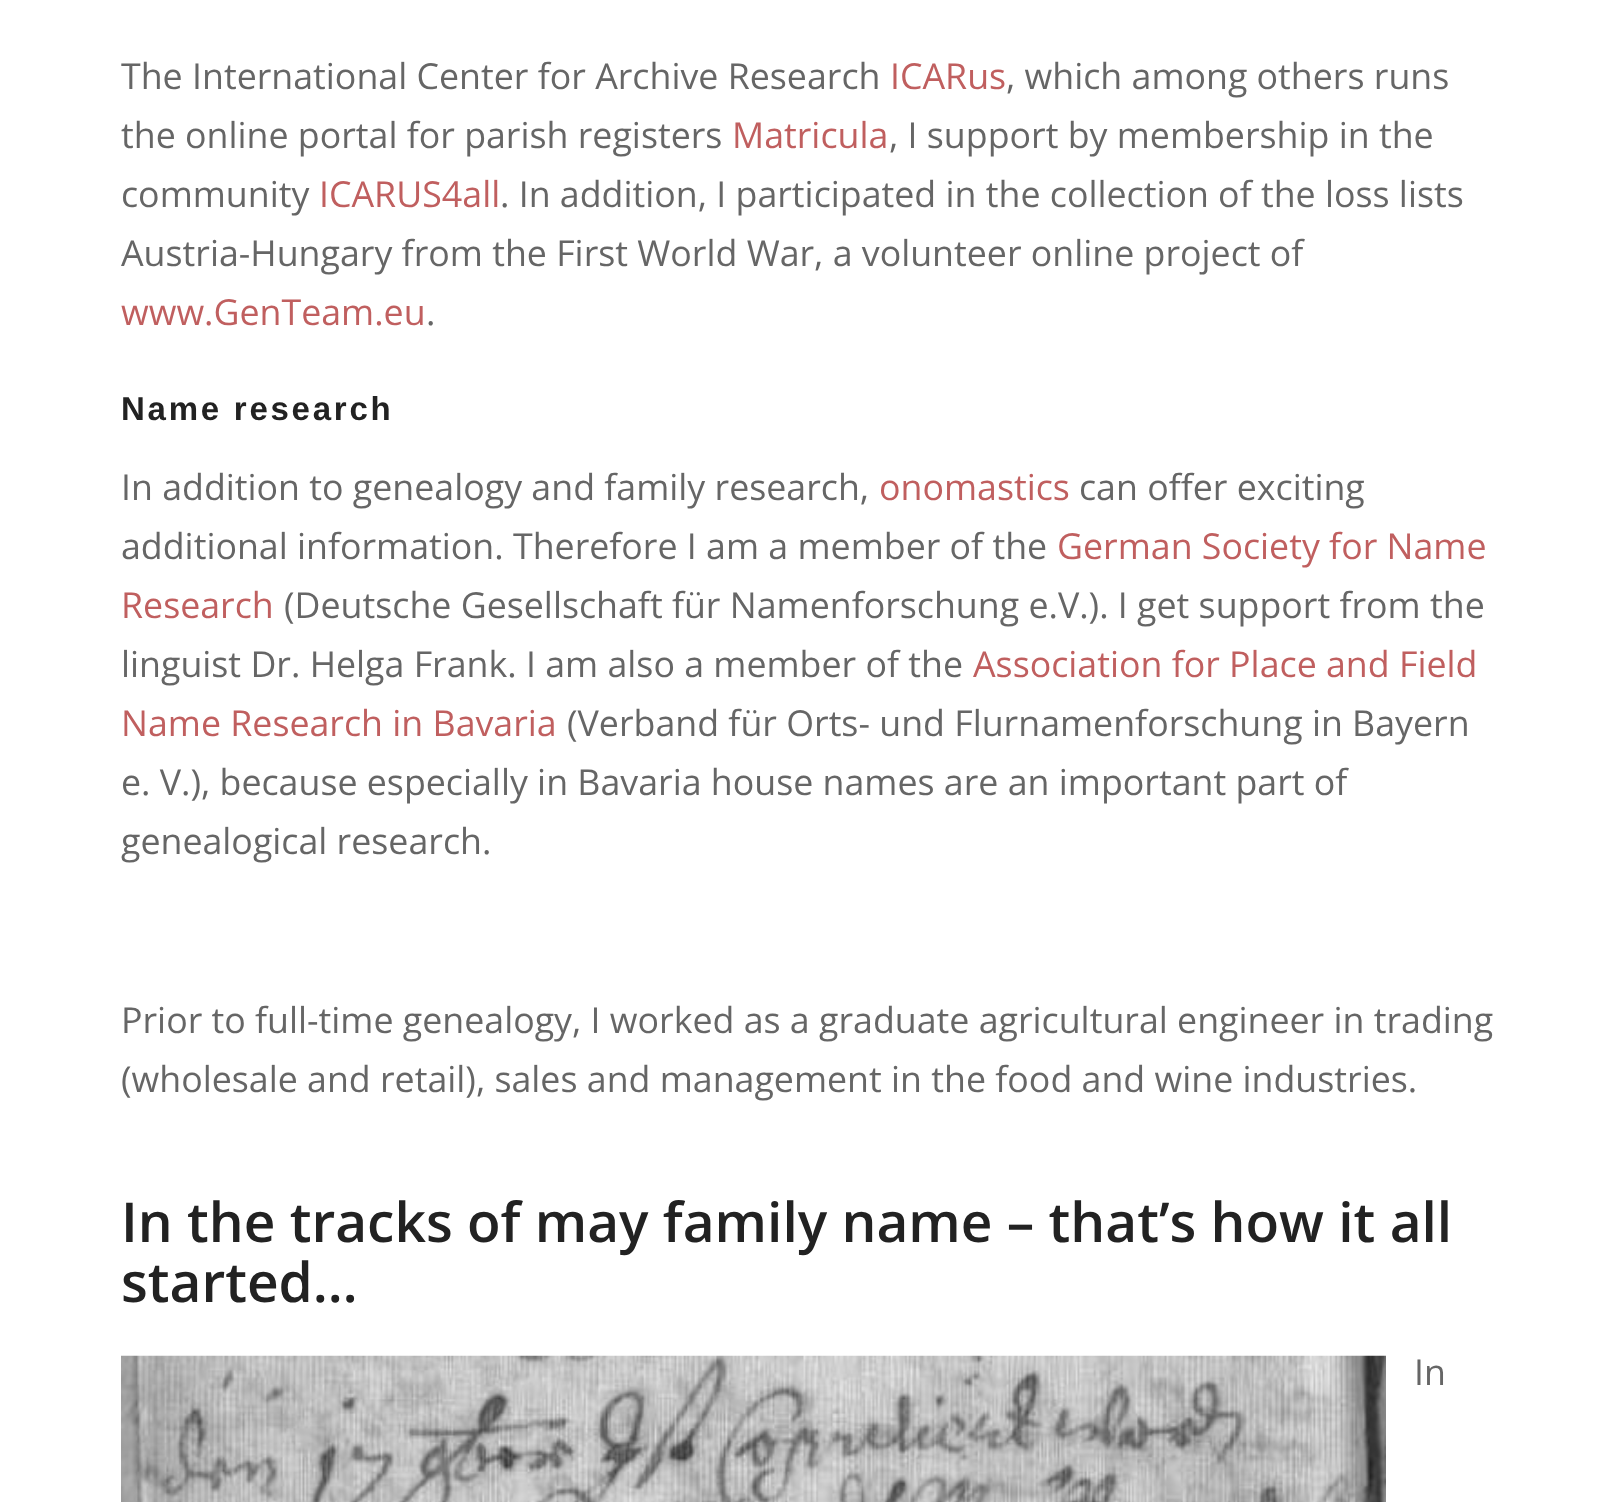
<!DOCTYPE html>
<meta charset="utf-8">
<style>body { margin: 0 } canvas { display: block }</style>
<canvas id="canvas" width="1619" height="1502"></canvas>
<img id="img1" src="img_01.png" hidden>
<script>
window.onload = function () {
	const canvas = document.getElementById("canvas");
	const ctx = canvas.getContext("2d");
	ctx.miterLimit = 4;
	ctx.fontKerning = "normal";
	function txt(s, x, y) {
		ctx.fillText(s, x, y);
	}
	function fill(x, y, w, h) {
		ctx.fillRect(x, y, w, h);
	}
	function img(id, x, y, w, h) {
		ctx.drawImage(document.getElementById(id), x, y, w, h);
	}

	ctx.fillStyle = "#FFFFFF";
	fill(0, 0, 1619, 1502);
	img("img1", 121, 1355, 1265, 147);
	ctx.font = "35.75px Open Sans";
	ctx.fillStyle = "#666666";
	txt("The International Center for Archive Research", 121, 89);
	ctx.fillStyle = "#C05F5F";
	txt("ICARus", 890, 89);
	ctx.fillStyle = "#666666";
	txt(", which among others runs", 1006, 89);
	txt("the online portal for parish registers", 121, 148);
	ctx.fillStyle = "#C05F5F";
	txt("Matricula", 732, 148);
	ctx.fillStyle = "#666666";
	txt(", I support by membership in the", 889, 148);
	txt("community", 121, 207);
	ctx.fillStyle = "#C05F5F";
	txt("ICARUS4all", 319, 207);
	ctx.fillStyle = "#666666";
	txt(". In addition, I participated in the collection of the loss lists", 500, 207);
	txt("Austria-Hungary from the First World War, a volunteer online project of", 121, 266);
	ctx.fillStyle = "#C05F5F";
	txt("www.GenTeam.eu", 121, 325);
	ctx.fillStyle = "#666666";
	txt(".", 426, 325);
	ctx.letterSpacing = "2.75px";
	ctx.font = "bold 33px Liberation Sans";
	ctx.fillStyle = "#222222";
	txt("Name research", 121, 420);
	ctx.letterSpacing = "0px";
	ctx.font = "35.75px Open Sans";
	ctx.fillStyle = "#666666";
	txt("In addition to genealogy and family research,", 121, 500);
	ctx.fillStyle = "#C05F5F";
	txt("onomastics", 879, 500);
	ctx.fillStyle = "#666666";
	txt("can offer exciting", 1079, 500);
	txt("additional information. Therefore I am a member of the", 121, 559);
	ctx.fillStyle = "#C05F5F";
	txt("German Society for Name", 1057, 559);
	txt("Research", 121, 618);
	ctx.fillStyle = "#666666";
	txt("(Deutsche Gesellschaft für Namenforschung e.V.). I get support from the", 284, 618);
	txt("linguist Dr. Helga Frank. I am also a member of the", 121, 677);
	ctx.fillStyle = "#C05F5F";
	txt("Association for Place and Field", 973, 677);
	txt("Name Research in Bavaria", 121, 736);
	ctx.fillStyle = "#666666";
	txt("(Verband für Orts- und Flurnamenforschung in Bayern", 567, 736);
	txt("e. V.), because especially in Bavaria house names are an important part of", 121, 795);
	txt("genealogical research.", 121, 854);
	txt("Prior to full-time genealogy, I worked as a graduate agricultural engineer in trading", 121, 1033);
	txt("(wholesale and retail), sales and management in the food and wine industries.", 121, 1092);
	ctx.font = "600 55px Open Sans";
	ctx.fillStyle = "#222222";
	txt("In the tracks of may family name – that’s how it all", 121, 1242);
	txt("started…", 121, 1302);
	ctx.font = "35.75px Open Sans";
	ctx.fillStyle = "#666666";
	txt("In", 1414, 1385);
};
</script>
